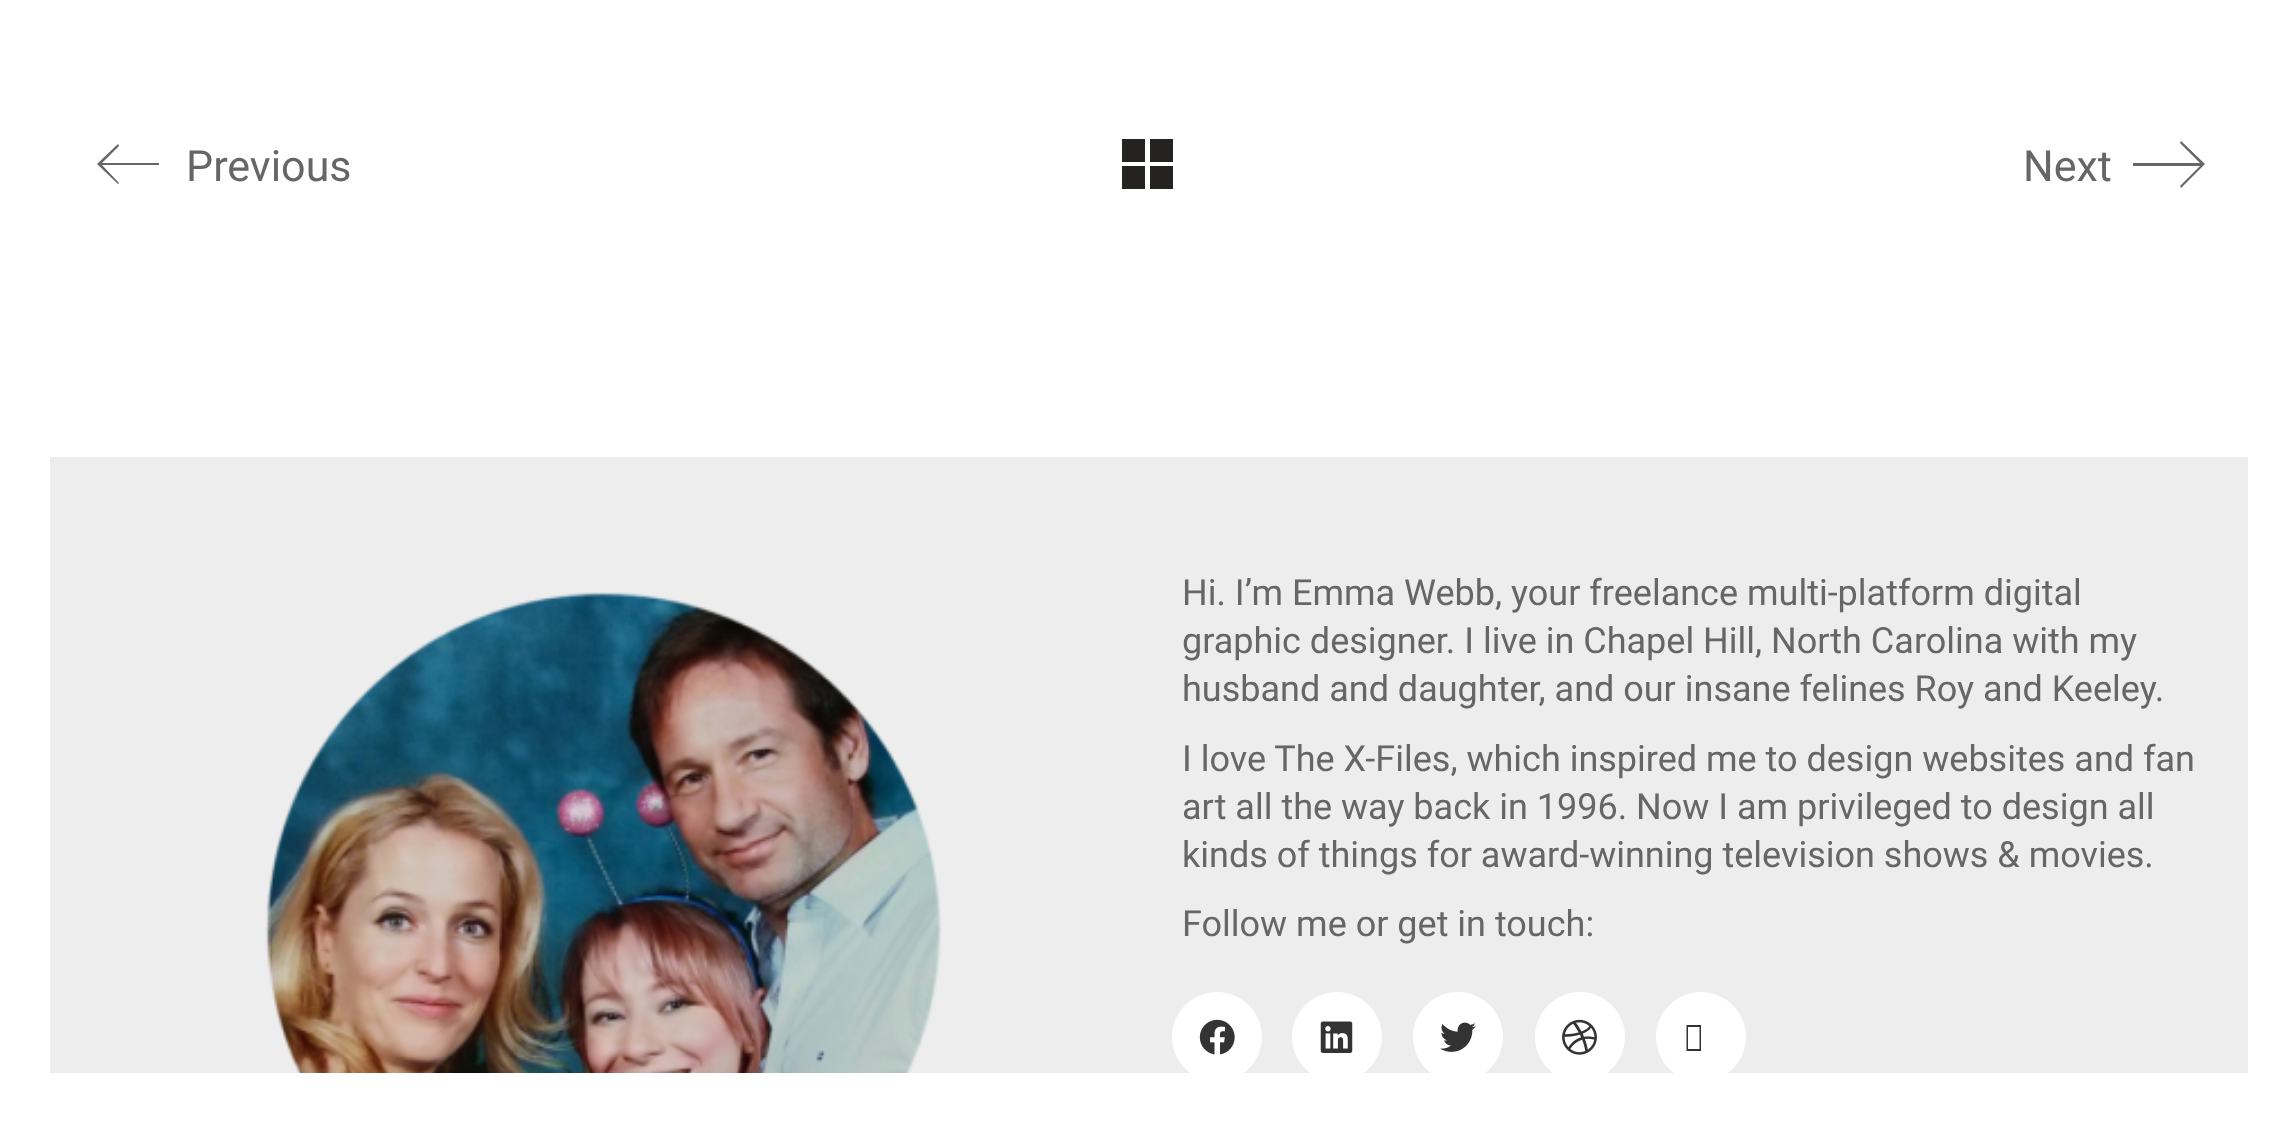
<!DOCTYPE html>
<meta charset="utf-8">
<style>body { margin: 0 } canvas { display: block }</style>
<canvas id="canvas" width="2296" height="1122"></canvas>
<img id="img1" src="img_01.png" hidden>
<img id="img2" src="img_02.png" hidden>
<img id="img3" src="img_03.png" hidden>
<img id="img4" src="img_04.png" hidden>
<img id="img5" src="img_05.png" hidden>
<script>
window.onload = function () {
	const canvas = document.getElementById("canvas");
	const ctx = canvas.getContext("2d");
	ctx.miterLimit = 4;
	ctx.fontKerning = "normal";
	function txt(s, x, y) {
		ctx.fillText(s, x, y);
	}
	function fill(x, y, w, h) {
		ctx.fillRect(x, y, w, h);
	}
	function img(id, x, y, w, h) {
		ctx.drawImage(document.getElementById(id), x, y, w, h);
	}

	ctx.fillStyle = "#FFFFFF";
	fill(0, 0, 2296, 1122);
	ctx.fillStyle = "#666666";
	ctx.beginPath();
	ctx.moveTo(159, 163);
	ctx.lineTo(102, 163);
	ctx.lineTo(119, 146);
	ctx.lineTo(118, 144);
	ctx.lineTo(97, 164);
	ctx.lineTo(118, 184);
	ctx.lineTo(119, 183);
	ctx.lineTo(102, 165);
	ctx.lineTo(159, 165);
	ctx.closePath();
	ctx.fill();
	ctx.fillStyle = "#242321";
	ctx.beginPath();
	ctx.moveTo(1122, 139);
	ctx.lineTo(1145, 139);
	ctx.lineTo(1145, 162);
	ctx.lineTo(1122, 162);
	ctx.closePath();
	ctx.moveTo(1150, 139);
	ctx.lineTo(1173, 139);
	ctx.lineTo(1173, 162);
	ctx.lineTo(1150, 162);
	ctx.closePath();
	ctx.moveTo(1122, 166);
	ctx.lineTo(1145, 166);
	ctx.lineTo(1145, 189);
	ctx.lineTo(1122, 189);
	ctx.closePath();
	ctx.moveTo(1150, 166);
	ctx.lineTo(1173, 166);
	ctx.lineTo(1173, 189);
	ctx.lineTo(1150, 189);
	ctx.closePath();
	ctx.fill();
	ctx.fillStyle = "#666666";
	ctx.beginPath();
	ctx.moveTo(2181, 141);
	ctx.lineTo(2180, 143);
	ctx.lineTo(2200, 163);
	ctx.lineTo(2133, 163);
	ctx.lineTo(2133, 166);
	ctx.lineTo(2200, 166);
	ctx.lineTo(2180, 186);
	ctx.lineTo(2181, 188);
	ctx.lineTo(2205, 164);
	ctx.closePath();
	ctx.fill();
	ctx.fillStyle = "#EDEDED";
	fill(50, 457, 2198, 616);
	img("img1", 265, 592, 676, 481);
	ctx.fillStyle = "#FFFFFF";
	ctx.beginPath();
	ctx.arc(1217, 1037, 45, 0, Math.PI * 2);
	ctx.fill();
	img("img2", 1199, 1019, 36, 36);
	ctx.beginPath();
	ctx.arc(1337, 1037, 45, 0, Math.PI * 2);
	ctx.fill();
	img("img3", 1320, 1021, 33, 32);
	ctx.beginPath();
	ctx.arc(1458, 1037, 45, 0, Math.PI * 2);
	ctx.fill();
	img("img4", 1440, 1022, 36, 30);
	ctx.beginPath();
	ctx.arc(1580, 1037, 45, 0, Math.PI * 2);
	ctx.fill();
	img("img5", 1562, 1019, 35, 36);
	ctx.beginPath();
	ctx.arc(1701, 1037, 45, 0, Math.PI * 2);
	ctx.fill();
	ctx.fillStyle = "#333333";
	ctx.beginPath();
	ctx.moveTo(1686.5, 1051);
	ctx.lineTo(1686.5, 1025);
	ctx.lineTo(1701, 1025);
	ctx.lineTo(1701, 1051);
	ctx.closePath();
	ctx.moveTo(1688, 1049);
	ctx.lineTo(1699.5, 1049);
	ctx.lineTo(1699.5, 1027);
	ctx.lineTo(1688, 1027);
	ctx.closePath();
	ctx.fill();
	ctx.font = "43px Roboto";
	ctx.fillStyle = "#666666";
	txt("Previous", 186, 181);
	txt("Next", 2023, 181);
	ctx.font = "36px Roboto";
	txt("Hi. I’m Emma Webb, your freelance multi-platform digital", 1182, 605);
	txt("graphic designer. I live in Chapel Hill, North Carolina with my", 1182, 653);
	txt("husband and daughter, and our insane felines Roy and Keeley.", 1182, 701);
	txt("I love The X-Files, which inspired me to design websites and fan", 1182, 771);
	txt("art all the way back in 1996. Now I am privileged to design all", 1182, 819);
	txt("kinds of things for award-winning television shows & movies.", 1182, 867);
	txt("Follow me or get in touch:", 1182, 936);
};
</script>
